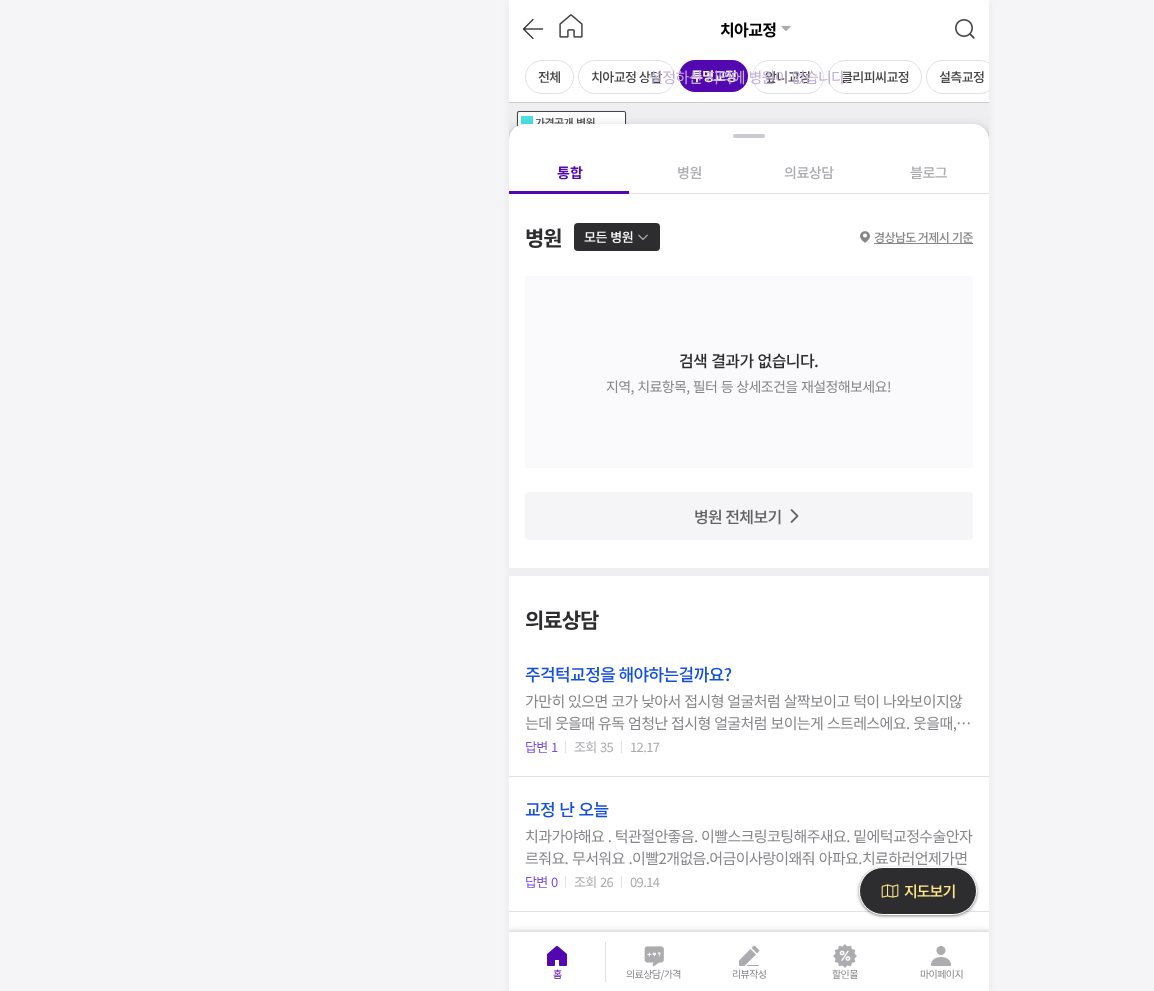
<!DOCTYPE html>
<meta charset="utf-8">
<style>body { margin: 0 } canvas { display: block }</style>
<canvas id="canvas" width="1154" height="991"></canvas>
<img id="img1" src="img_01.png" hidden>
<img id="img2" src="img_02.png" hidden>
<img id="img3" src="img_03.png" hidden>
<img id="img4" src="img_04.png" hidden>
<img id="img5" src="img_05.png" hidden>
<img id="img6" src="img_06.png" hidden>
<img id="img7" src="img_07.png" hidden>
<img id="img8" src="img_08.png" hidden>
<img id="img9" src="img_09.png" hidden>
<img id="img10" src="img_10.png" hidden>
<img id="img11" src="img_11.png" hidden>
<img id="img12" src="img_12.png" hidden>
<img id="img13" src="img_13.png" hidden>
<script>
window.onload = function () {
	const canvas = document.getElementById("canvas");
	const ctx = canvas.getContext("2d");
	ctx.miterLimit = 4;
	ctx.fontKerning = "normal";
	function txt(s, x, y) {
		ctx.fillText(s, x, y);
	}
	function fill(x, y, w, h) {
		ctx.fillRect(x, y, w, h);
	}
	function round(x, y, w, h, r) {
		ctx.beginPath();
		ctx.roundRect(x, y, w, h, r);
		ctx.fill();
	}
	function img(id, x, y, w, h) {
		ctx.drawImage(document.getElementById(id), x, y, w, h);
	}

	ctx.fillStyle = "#F5F5F7";
	fill(0, 0, 1154, 991);
	ctx.fillStyle = "rgba(0, 0, 0, 0.05)";
	ctx.filter = "blur(5px)";
	ctx.beginPath();
	ctx.rect(509, 1, 480, 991);
	ctx.fill();
	ctx.filter = "none";
	ctx.fillStyle = "rgba(0, 0, 0, 0.3)";
	ctx.filter = "blur(0.5px)";
	ctx.beginPath();
	ctx.rect(509, 0, 480, 991);
	ctx.fill();
	ctx.filter = "none";
	ctx.fillStyle = "#FFFFFF";
	fill(509, 0, 480, 102);
	img("img1", 522, 18, 22, 22);
	img("img2", 559, 14, 24, 24);
	img("img3", 781, 26, 10, 5);
	img("img4", 955, 19, 20, 20);
	ctx.fillStyle = "#CBCACF";
	fill(509, 102, 480, 1);
	ctx.beginPath();
	ctx.roundRect(525.5, 60.5, 48, 33, 16.5);
	ctx.strokeStyle = "#E2E1E5";
	ctx.stroke();
	ctx.beginPath();
	ctx.roundRect(578.5, 60.5, 96, 33, 16.5);
	ctx.stroke();
	ctx.fillStyle = "#5307B0";
	round(679, 60, 69, 32, 16);
	ctx.beginPath();
	ctx.roundRect(752.5, 60.5, 71, 33, 16.5);
	ctx.stroke();
	ctx.beginPath();
	ctx.roundRect(828.5, 60.5, 93, 33, 16.5);
	ctx.stroke();
	ctx.save();
	ctx.beginPath();
	ctx.rect(509, 52, 480, 50);
	ctx.clip();
	ctx.beginPath();
	ctx.roundRect(926.5, 60.5, 70, 33, 16.5);
	ctx.stroke();
	ctx.restore();
	ctx.fillStyle = "#EFEFF2";
	fill(509, 103, 480, 37);
	ctx.fillStyle = "rgba(0, 0, 0, 0.15)";
	ctx.filter = "blur(1px)";
	ctx.beginPath();
	ctx.roundRect(517, 112, 109, 54, 2);
	ctx.fill();
	ctx.filter = "none";
	ctx.fillStyle = "rgba(0, 0, 0, 0.3)";
	ctx.filter = "blur(0.5px)";
	ctx.beginPath();
	ctx.roundRect(517, 111, 109, 54, 2);
	ctx.fill();
	ctx.filter = "none";
	ctx.fillStyle = "#FFFFFF";
	ctx.beginPath();
	ctx.roundRect(517.5, 111.5, 108, 53, 1.5);
	ctx.fill();
	ctx.strokeStyle = "#454447";
	ctx.stroke();
	ctx.fillStyle = "#49E3E3";
	fill(521, 116, 12, 9);
	ctx.save();
	ctx.beginPath();
	ctx.rect(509, 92, 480, 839);
	ctx.clip();
	ctx.fillStyle = "rgba(0, 0, 0, 0.3)";
	ctx.filter = "blur(2px)";
	ctx.beginPath();
	ctx.roundRect(509, 128, 480, 807, 16);
	ctx.fill();
	ctx.filter = "none";
	ctx.fillStyle = "rgba(0, 0, 0, 0.15)";
	ctx.filter = "blur(6px)";
	ctx.beginPath();
	ctx.roundRect(503, 126, 492, 819, 22);
	ctx.fill();
	ctx.filter = "none";
	ctx.restore();
	ctx.fillStyle = "#EFEFF2";
	fill(509, 568, 480, 8);
	ctx.fillStyle = "#FFFFFF";
	fill(509, 194, 480, 374);
	ctx.fillStyle = "#2D2C2E";
	round(574, 223, 86, 28, 4);
	img("img5", 638, 234, 10, 6);
	img("img6", 860, 231, 10, 12);
	ctx.fillStyle = "#87868A";
	fill(874, 243, 99, 1);
	ctx.fillStyle = "#FAFAFC";
	fill(525, 276, 448, 192);
	ctx.fillStyle = "#F5F5F7";
	round(525, 492, 448, 48, 4);
	img("img7", 790, 509, 9, 14);
	ctx.fillStyle = "#FFFFFF";
	fill(509, 576, 480, 355);
	ctx.fillStyle = "#E2E1E5";
	fill(565, 741, 1, 12);
	fill(621, 741, 1, 12);
	fill(509, 776, 480, 1);
	fill(565, 876, 1, 12);
	fill(621, 876, 1, 12);
	fill(509, 911, 480, 1);
	ctx.fillStyle = "rgba(0, 0, 0, 0.15)";
	ctx.filter = "blur(1.5px)";
	ctx.beginPath();
	ctx.roundRect(858, 867, 120, 50, 25);
	ctx.fill();
	ctx.filter = "none";
	ctx.fillStyle = "rgba(0, 0, 0, 0.3)";
	ctx.filter = "blur(1px)";
	ctx.beginPath();
	ctx.roundRect(859, 868, 118, 48, 24);
	ctx.fill();
	ctx.filter = "none";
	ctx.fillStyle = "#2D2C2E";
	ctx.beginPath();
	ctx.roundRect(859.5, 867.5, 117, 47, 23.5);
	ctx.fill();
	ctx.strokeStyle = "#FFFFFF";
	ctx.stroke();
	img("img8", 881, 884, 18, 14);
	ctx.save();
	ctx.beginPath();
	ctx.rect(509, 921, 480, 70);
	ctx.clip();
	ctx.fillStyle = "rgba(0, 0, 0, 0.3)";
	ctx.filter = "blur(1.5px)";
	ctx.beginPath();
	ctx.rect(509, 932, 480, 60);
	ctx.fill();
	ctx.filter = "none";
	ctx.fillStyle = "rgba(0, 0, 0, 0.15)";
	ctx.filter = "blur(4px)";
	ctx.beginPath();
	ctx.rect(506, 932, 486, 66);
	ctx.fill();
	ctx.filter = "none";
	ctx.restore();
	ctx.fillStyle = "#FFFFFF";
	fill(509, 932, 480, 59);
	ctx.fillStyle = "#E2E1E5";
	fill(509, 931, 480, 1);
	img("img9", 547, 945, 20, 21);
	fill(605, 942, 1, 40);
	img("img10", 644, 946, 20, 21);
	img("img11", 739, 945, 21, 21);
	img("img12", 833, 944, 24, 24);
	img("img13", 931, 946, 20, 20);
	ctx.letterSpacing = "-0.6px";
	ctx.font = "bold 16px Noto Sans KR";
	ctx.fillStyle = "#000000";
	txt("치아교정", 720, 36);
	ctx.font = "500 13px Noto Sans KR";
	ctx.fillStyle = "#454447";
	txt("전체", 538, 82);
	txt("치아교정 상담", 591, 82);
	ctx.font = "bold 13px Noto Sans KR";
	ctx.fillStyle = "#FFFFFF";
	txt("투명교정", 691, 81);
	ctx.font = "500 13px Noto Sans KR";
	ctx.fillStyle = "#454447";
	txt("앞니교정", 765, 82);
	txt("클리피씨교정", 841, 82);
	txt("설측교정", 939, 82);
	ctx.wordSpacing = "0.75px";
	ctx.font = "15px Noto Sans KR";
	ctx.fillStyle = "#C1AFD7";
	txt("설정하신 지역에 병원이 없습니다.", 649, 83);
	ctx.wordSpacing = "0px";
	ctx.font = "500 11px Noto Sans KR";
	ctx.fillStyle = "#454447";
	txt("가격공개", 535, 127);
	txt("병원", 576, 127);
	ctx.fillStyle = "#FFFFFF";
	ctx.beginPath();
	ctx.roundRect(509, 124, 480, 70, [16, 16, 0, 0]);
	ctx.fill();
	ctx.fillStyle = "#CBCACF";
	round(733, 134, 32, 4, 2);
	ctx.fillStyle = "#5307B0";
	fill(509, 191, 120, 3);
	ctx.letterSpacing = "0px";
	ctx.font = "bold 14px Noto Sans KR";
	txt("통합", 557, 178);
	ctx.fillStyle = "#E2E1E5";
	fill(629, 193, 360, 1);
	ctx.letterSpacing = "-0.5px";
	ctx.font = "500 14px Noto Sans KR";
	ctx.fillStyle = "#ACABB0";
	txt("병원", 677, 178);
	txt("의료상담", 784, 178);
	txt("블로그", 910, 178);
	ctx.letterSpacing = "-1px";
	ctx.font = "bold 21px Noto Sans KR";
	ctx.fillStyle = "#2D2C2E";
	txt("병원", 525, 246);
	ctx.letterSpacing = "-0.5px";
	ctx.wordSpacing = "1px";
	ctx.font = "500 13px Noto Sans KR";
	ctx.fillStyle = "#FFFFFF";
	txt("모든 병원", 584, 242);
	ctx.letterSpacing = "-0.6px";
	ctx.wordSpacing = "0px";
	ctx.font = "500 12px Noto Sans KR";
	ctx.fillStyle = "#87868A";
	txt("경상남도 거제시", 874, 242);
	txt("기준", 952, 242);
	ctx.wordSpacing = "1px";
	ctx.font = "500 16px Noto Sans KR";
	ctx.fillStyle = "#2D2C2E";
	txt("검색 결과가 없습니다.", 679, 367);
	ctx.wordSpacing = "0.75px";
	ctx.font = "14px Noto Sans KR";
	ctx.fillStyle = "#87868A";
	txt("지역, 치료항목, 필터 등 상세조건을 재설정해보세요!", 606, 392);
	ctx.wordSpacing = "0px";
	ctx.font = "500 16px Noto Sans KR";
	ctx.fillStyle = "#626263";
	txt("병원 전체보기", 694, 523);
	ctx.letterSpacing = "-1px";
	ctx.font = "bold 21px Noto Sans KR";
	ctx.fillStyle = "#2D2C2E";
	txt("의료상담", 525, 628);
	ctx.letterSpacing = "-0.6px";
	ctx.font = "500 17px Noto Sans KR";
	ctx.fillStyle = "#1450DD";
	txt("주걱턱교정을 해야하는걸까요?", 525, 681);
	ctx.wordSpacing = "0.75px";
	ctx.font = "15px Noto Sans KR";
	ctx.fillStyle = "#87868A";
	txt("가만히 있으면 코가 낮아서 접시형 얼굴처럼 살짝보이고 턱이 나와보이지않", 525, 707);
	txt("는데 웃을때 유독 엄청난 접시형 얼굴처럼 보이는게 스트레스에요. 웃을때,…", 525, 729);
	ctx.wordSpacing = "0px";
	ctx.font = "13px Noto Sans KR";
	ctx.fillStyle = "#7E4FDB";
	txt("답변", 525, 752);
	txt("1", 551, 752);
	ctx.fillStyle = "#ACABB0";
	txt("조회", 574, 752);
	txt("35", 600, 752);
	txt("12.17", 630, 752);
	ctx.wordSpacing = "1px";
	ctx.font = "500 17px Noto Sans KR";
	ctx.fillStyle = "#1450DD";
	txt("교정 난 오늘", 525, 816);
	ctx.wordSpacing = "0.75px";
	ctx.font = "15px Noto Sans KR";
	ctx.fillStyle = "#87868A";
	txt("치과가야해요 . 턱관절안좋음. 이빨스크링코팅해주새요. 밑에턱교정수술안자", 525, 842);
	ctx.wordSpacing = "1px";
	txt("르줘요. 무서워요 .이빨2개없음.어금이사랑이왜줘 아파요.치료하러언제가면", 525, 864);
	ctx.wordSpacing = "0px";
	ctx.font = "13px Noto Sans KR";
	ctx.fillStyle = "#7E4FDB";
	txt("답변", 525, 887);
	txt("0", 551, 887);
	ctx.fillStyle = "#ACABB0";
	txt("조회", 574, 887);
	txt("26", 600, 887);
	txt("09.14", 630, 887);
	ctx.letterSpacing = "-1px";
	ctx.font = "500 15px Noto Sans KR";
	ctx.fillStyle = "#FFE88A";
	txt("지도보기", 904, 897);
	ctx.letterSpacing = "-0.6px";
	ctx.font = "10px Noto Sans KR";
	ctx.fillStyle = "#5307B0";
	txt("홈", 553, 978);
	ctx.fillStyle = "#87868A";
	txt("의료상담/가격", 626, 978);
	txt("리뷰작성", 732, 978);
	txt("할인몰", 832, 978);
	txt("마이페이지", 920, 978);
};
</script>
